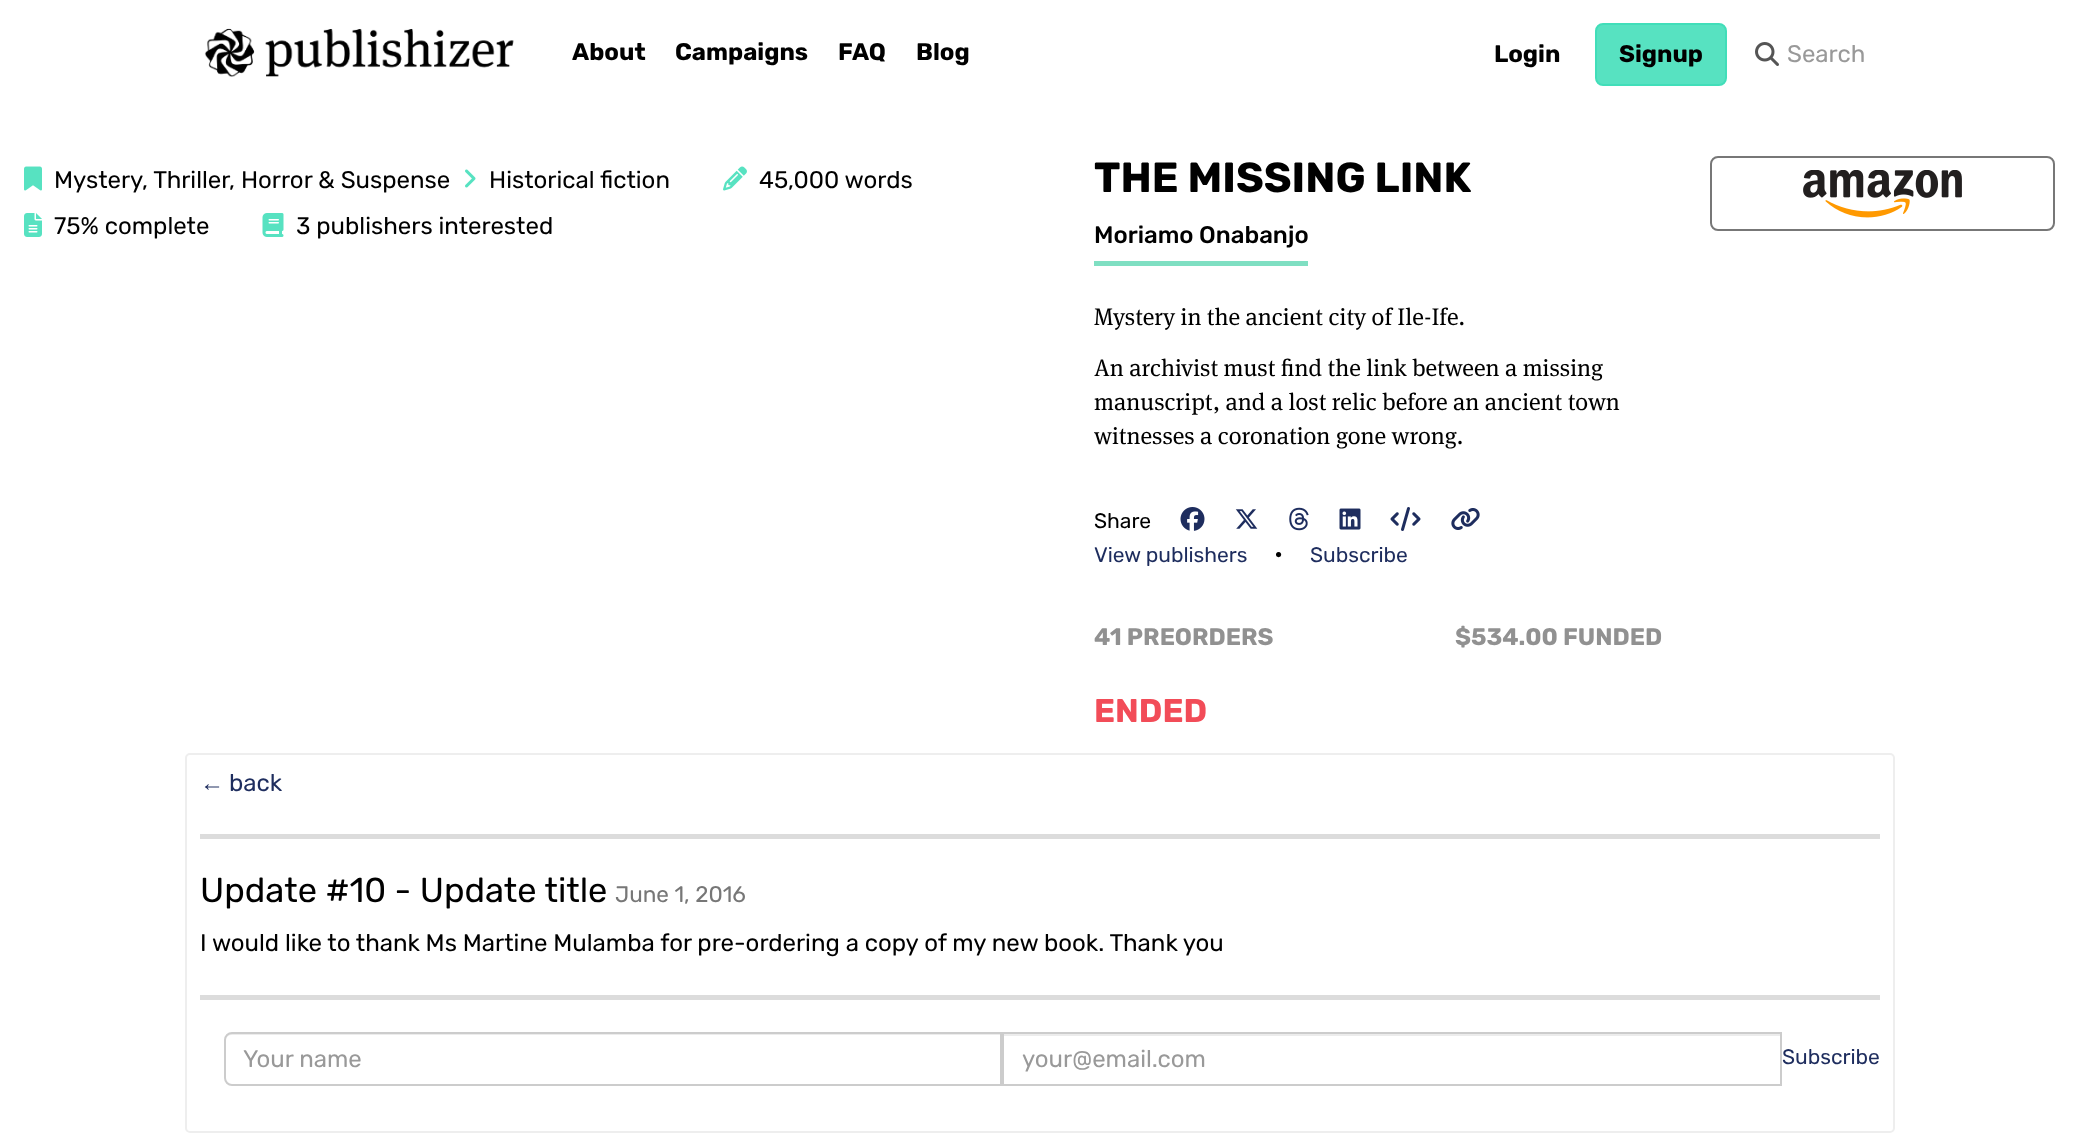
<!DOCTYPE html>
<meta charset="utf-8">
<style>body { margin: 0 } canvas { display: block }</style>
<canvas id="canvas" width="2079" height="1133"></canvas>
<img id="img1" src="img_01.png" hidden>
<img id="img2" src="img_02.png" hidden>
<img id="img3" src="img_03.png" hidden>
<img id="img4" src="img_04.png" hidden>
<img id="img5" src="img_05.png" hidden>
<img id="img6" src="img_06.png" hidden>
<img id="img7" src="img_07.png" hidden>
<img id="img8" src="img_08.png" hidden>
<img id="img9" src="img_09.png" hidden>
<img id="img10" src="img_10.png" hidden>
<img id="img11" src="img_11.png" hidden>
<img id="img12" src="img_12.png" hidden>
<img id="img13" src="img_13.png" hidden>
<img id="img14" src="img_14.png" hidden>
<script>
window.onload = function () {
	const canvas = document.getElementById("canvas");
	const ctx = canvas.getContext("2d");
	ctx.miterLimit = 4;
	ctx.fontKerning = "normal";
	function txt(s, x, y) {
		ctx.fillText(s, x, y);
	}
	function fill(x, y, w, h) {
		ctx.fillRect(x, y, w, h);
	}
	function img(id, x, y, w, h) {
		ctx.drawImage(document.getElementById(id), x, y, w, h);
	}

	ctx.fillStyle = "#FFFFFF";
	fill(0, 0, 2079, 1133);
	img("img1", 204, 28, 310, 49);
	ctx.fillStyle = "#57E2C1";
	ctx.beginPath();
	ctx.roundRect(1596, 24, 130, 61, 7);
	ctx.fill();
	ctx.strokeStyle = "#41DEB9";
	ctx.lineWidth = 2;
	ctx.stroke();
	img("img2", 1755, 42, 24, 24);
	img("img3", 24, 166, 18, 25);
	img("img4", 465, 169, 11, 19);
	img("img5", 723, 166, 24, 25);
	img("img6", 24, 213, 18, 24);
	img("img7", 262, 213, 22, 24);
	ctx.fillStyle = "#7FDFC2";
	fill(1094, 261, 214, 5);
	img("img8", 1180, 507, 25, 24);
	img("img9", 1235, 509, 23, 20);
	img("img10", 1289, 507, 20, 24);
	img("img11", 1339, 508, 22, 22);
	img("img12", 1390, 507, 31, 24);
	img("img13", 1451, 508, 29, 22);
	ctx.beginPath();
	ctx.roundRect(1711, 157, 343, 73, 7);
	ctx.strokeStyle = "#777777";
	ctx.stroke();
	img("img14", 1803, 170, 159, 48);
	ctx.beginPath();
	ctx.roundRect(186, 754, 1708, 378, 4);
	ctx.strokeStyle = "#EEEEEE";
	ctx.stroke();
	ctx.fillStyle = "#DCDCDC";
	fill(200, 834, 1680, 5);
	fill(200, 995, 1680, 5);
	ctx.fillStyle = "#ECECEC";
	ctx.beginPath();
	ctx.moveTo(231, 1035);
	ctx.lineTo(1000, 1035);
	ctx.lineTo(1000, 1085);
	ctx.lineTo(1001, 1085);
	ctx.lineTo(1001, 1034);
	ctx.lineTo(231, 1034);
	ctx.bezierCurveTo(227, 1034, 225, 1037, 225, 1041);
	ctx.bezierCurveTo(225, 1038, 228, 1035, 231, 1035);
	ctx.closePath();
	ctx.fill();
	ctx.beginPath();
	ctx.roundRect(225, 1033, 776, 52, [7, 0, 0, 7]);
	ctx.strokeStyle = "#CCCCCC";
	ctx.stroke();
	fill(1004, 1034, 777, 2);
	ctx.strokeRect(1003, 1033, 778, 52);
	ctx.font = "bold 24px Rubik";
	ctx.fillStyle = "#000000";
	txt("About", 572, 60);
	txt("Campaigns", 675, 60);
	txt("FAQ", 838, 60);
	txt("Blog", 916, 60);
	txt("Login", 1494, 62);
	txt("Signup", 1619, 62);
	ctx.font = "24px Rubik";
	ctx.fillStyle = "#999999";
	txt("Search", 1787, 62);
	ctx.fillStyle = "#000000";
	txt("Mystery, Thriller, Horror & Suspense", 54, 188);
	txt("Historical fiction", 489, 188);
	txt("45,000 words", 759, 188);
	txt("75% complete", 54, 234);
	txt("3 publishers interested", 296, 234);
	ctx.font = "bold 42px Rubik";
	txt("THE MISSING LINK", 1094, 192);
	ctx.font = "500 24px Rubik";
	txt("Moriamo Onabanjo", 1094, 243);
	ctx.font = "24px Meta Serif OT";
	txt("Mystery in the ancient city of Ile-Ife.", 1094, 325);
	txt("An archivist must find the link between a missing", 1094, 376);
	txt("manuscript, and a lost relic before an ancient town", 1094, 410);
	txt("witnesses a coronation gone wrong.", 1094, 444);
	ctx.font = "21px Rubik";
	txt("Share", 1094, 528);
	ctx.fillStyle = "#1E2D5E";
	txt("View publishers", 1094, 562);
	ctx.font = "24px Rubik";
	ctx.fillStyle = "#000000";
	txt("•", 1274, 562);
	ctx.font = "21px Rubik";
	ctx.fillStyle = "#1E2D5E";
	txt("Subscribe", 1310, 562);
	ctx.font = "bold 24px Rubik";
	ctx.fillStyle = "#919191";
	txt("41 PREORDERS", 1094, 645);
	txt("$534.00 FUNDED", 1455, 645);
	ctx.font = "bold 33px Rubik";
	ctx.fillStyle = "#F24C58";
	txt("ENDED", 1094, 722);
	ctx.font = "24px Liberation Sans";
	ctx.fillStyle = "#1E2D5E";
	txt("←", 200, 791);
	ctx.font = "24px Rubik";
	txt("back", 229, 791);
	ctx.font = "34.5px Rubik";
	ctx.fillStyle = "#000000";
	txt("Update #10 - Update title", 200, 902);
	ctx.font = "22.5px Rubik";
	ctx.fillStyle = "#777777";
	txt("June 1, 2016", 615, 902);
	ctx.font = "24px Rubik";
	ctx.fillStyle = "#000000";
	txt("I would like to thank Ms Martine Mulamba for pre-ordering a copy of my new book. Thank you", 200, 951);
	ctx.fillStyle = "#999999";
	txt("Your name", 243, 1067);
	txt("your@email.com", 1022, 1067);
	ctx.font = "21px Rubik";
	ctx.fillStyle = "#1E2D5E";
	txt("Subscribe", 1782, 1064);
};
</script>
